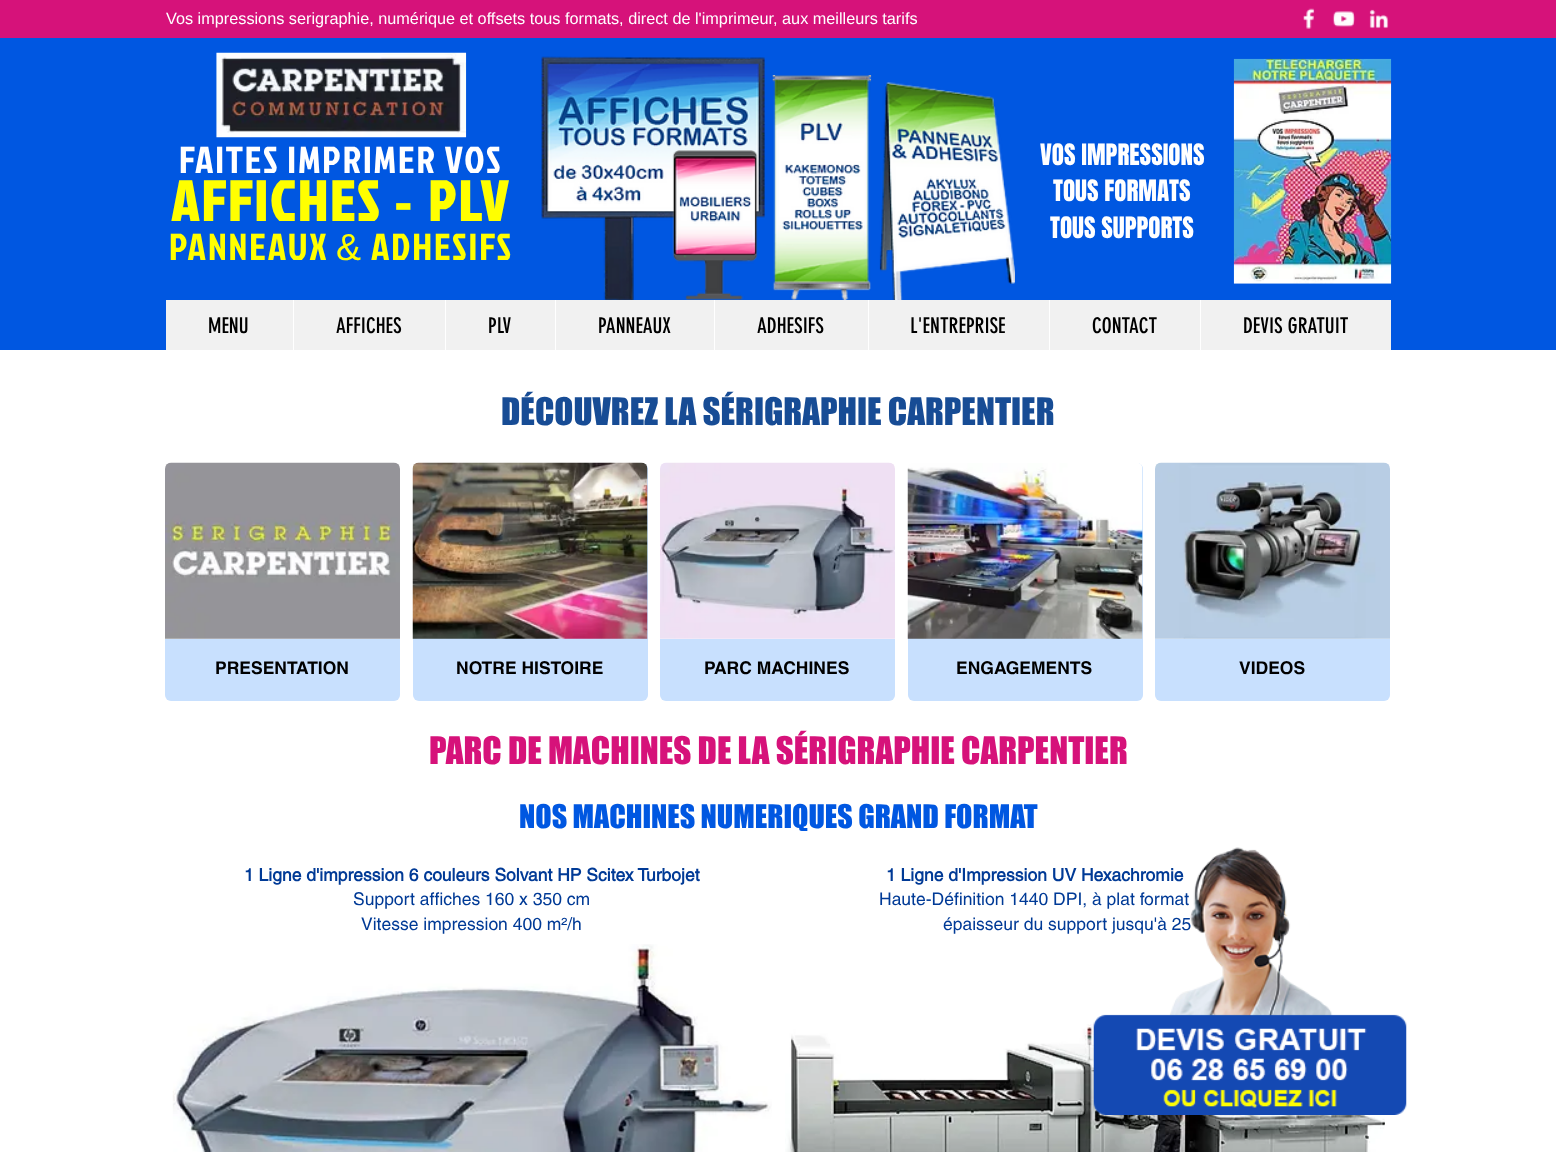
<!DOCTYPE html>
<meta charset="utf-8">
<style>body { margin: 0 } canvas { display: block }</style>
<canvas id="canvas" width="1556" height="1152"></canvas>
<img id="img1" src="img_01.png" hidden>
<img id="img2" src="img_02.png" hidden>
<img id="img3" src="img_03.png" hidden>
<img id="img4" src="img_04.png" hidden>
<img id="img5" src="img_05.png" hidden>
<img id="img6" src="img_06.png" hidden>
<img id="img7" src="img_07.png" hidden>
<img id="img8" src="img_08.png" hidden>
<img id="img9" src="img_09.png" hidden>
<img id="img10" src="img_10.png" hidden>
<img id="img11" src="img_11.png" hidden>
<img id="img12" src="img_12.png" hidden>
<img id="img13" src="img_13.png" hidden>
<img id="img14" src="img_14.png" hidden>
<img id="img15" src="img_15.png" hidden>
<img id="img16" src="img_16.png" hidden>
<img id="img17" src="img_17.png" hidden>
<script>
window.onload = function () {
	const canvas = document.getElementById("canvas");
	const ctx = canvas.getContext("2d");
	ctx.miterLimit = 4;
	ctx.fontKerning = "normal";
	function txt(s, x, y) {
		ctx.fillText(s, x, y);
	}
	function fill(x, y, w, h) {
		ctx.fillRect(x, y, w, h);
	}
	function img(id, x, y, w, h) {
		ctx.drawImage(document.getElementById(id), x, y, w, h);
	}

	ctx.fillStyle = "#FFFFFF";
	fill(0, 0, 1556, 1152);
	ctx.fillStyle = "#D6127A";
	fill(0, 0, 1556, 38);
	img("img1", 1303, 8, 12, 21);
	img("img2", 1332, 11, 23, 16);
	img("img3", 1369, 9, 20, 20);
	ctx.fillStyle = "#0057E1";
	fill(0, 38, 1556, 312);
	img("img4", 216, 52, 251, 86);
	img("img5", 541, 56, 224, 244);
	img("img6", 772, 75, 100, 225);
	img("img7", 879, 82, 136, 218);
	img("img8", 1233, 58, 159, 226);
	img("img9", 672, 150, 86, 150);
	ctx.fillStyle = "#F1F1F1";
	fill(166, 300, 1225, 50);
	ctx.fillStyle = "#FFFFFF";
	fill(293, 300, 1, 50);
	fill(445, 300, 1, 50);
	fill(555, 300, 1, 50);
	fill(714, 300, 1, 50);
	fill(868, 300, 1, 50);
	fill(1049, 300, 1, 50);
	fill(1200, 300, 1, 50);
	img("img10", 165, 462, 235, 177);
	ctx.fillStyle = "#C8E0FE";
	ctx.beginPath();
	ctx.roundRect(165, 639, 235, 62, [0, 0, 6, 6]);
	ctx.fill();
	ctx.beginPath();
	ctx.roundRect(413, 463, 235, 176, [6, 6, 0, 0]);
	ctx.fill();
	img("img11", 412, 462, 236, 177);
	ctx.beginPath();
	ctx.roundRect(413, 639, 235, 62, [0, 0, 6, 6]);
	ctx.fill();
	img("img12", 660, 462, 235, 177);
	ctx.beginPath();
	ctx.roundRect(660, 639, 235, 62, [0, 0, 6, 6]);
	ctx.fill();
	ctx.beginPath();
	ctx.roundRect(908, 463, 235, 176, [6, 6, 0, 0]);
	ctx.fill();
	img("img13", 907, 463, 236, 176);
	ctx.beginPath();
	ctx.roundRect(908, 639, 235, 62, [0, 0, 6, 6]);
	ctx.fill();
	img("img14", 1155, 462, 235, 177);
	ctx.beginPath();
	ctx.roundRect(1155, 639, 235, 62, [0, 0, 6, 6]);
	ctx.fill();
	img("img15", 172, 944, 600, 208);
	img("img16", 785, 1024, 600, 128);
	ctx.font = "16.25px Liberation Sans";
	ctx.fillStyle = "#FFFFFF";
	txt("Vos impressions serigraphie, numérique et offsets tous formats, direct de l'imprimeur, aux meilleurs tarifs", 166, 24);
	ctx.font = "25px Anton";
	txt("VOS IMPRESSIONS", 1040, 165);
	txt("TOUS FORMATS", 1053, 201);
	txt("TOUS SUPPORTS", 1050, 238);
	ctx.letterSpacing = "1.9px";
	ctx.font = "37.5px Jockey One";
	txt("FAITES IMPRIMER VOS", 179, 173);
	ctx.letterSpacing = "2.75px";
	ctx.font = "bold 56px Jockey One";
	ctx.fillStyle = "#FFFF00";
	txt("AFFICHES", 171, 221);
	ctx.font = "bold 56px Liberation Sans";
	txt("-", 394, 221);
	ctx.font = "bold 56px Jockey One";
	txt("PLV", 428, 221);
	ctx.letterSpacing = "1.9px";
	ctx.font = "37.5px Jockey One";
	txt("PANNEAUX", 169, 260);
	ctx.font = "37.5px Liberation Sans";
	txt("&", 336, 260);
	ctx.font = "37.5px Jockey One";
	txt("ADHESIFS", 371, 260);
	ctx.letterSpacing = "0px";
	ctx.font = "21.25px 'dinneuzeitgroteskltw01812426'";
	ctx.fillStyle = "#000000";
	txt("MENU", 208, 333);
	txt("AFFICHES", 336, 333);
	txt("PLV", 488, 333);
	txt("PANNEAUX", 598, 333);
	txt("ADHESIFS", 757, 333);
	txt("L'ENTREPRISE", 910, 333);
	txt("CONTACT", 1092, 333);
	txt("DEVIS GRATUIT", 1243, 333);
	ctx.font = "35px 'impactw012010'";
	ctx.fillStyle = "#174C95";
	txt("DÉCOUVREZ LA SÉRIGRAPHIE CARPENTIER", 501, 425);
	ctx.font = "bold 17.5px helvetica";
	ctx.fillStyle = "#000000";
	txt("PRESENTATION", 215, 674);
	txt("NOTRE HISTOIRE", 456, 674);
	txt("PARC MACHINES", 704, 674);
	txt("ENGAGEMENTS", 956, 674);
	txt("VIDEOS", 1239, 674);
	ctx.font = "35px 'impactw012010'";
	ctx.fillStyle = "#D6127A";
	txt("PARC DE MACHINES DE LA SÉRIGRAPHIE CARPENTIER", 429, 764);
	ctx.font = "30px 'impactw012010'";
	ctx.fillStyle = "#0057E1";
	txt("NOS MACHINES NUMERIQUES GRAND FORMAT", 519, 828);
	ctx.font = "bold 17.5px 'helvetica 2'";
	ctx.fillStyle = "#003A96";
	txt("1 Ligne d'impression 6 couleurs Solvant HP Scitex Turbojet", 244, 881);
	ctx.font = "17.5px helvetica";
	txt("Support affiches 160 x 350 cm", 353, 905);
	txt("Vitesse impression 400 m²/h", 361, 930);
	ctx.font = "bold 17.5px 'helvetica 2'";
	txt("1 Ligne d'Impression UV Hexachromie", 886, 881);
	ctx.font = "17.5px helvetica";
	txt("Haute-Définition 1440 DPI, à plat format", 879, 905);
	txt("épaisseur du support jusqu'à 25", 943, 930);
	img("img17", 1093, 847, 314, 268);
};
</script>
